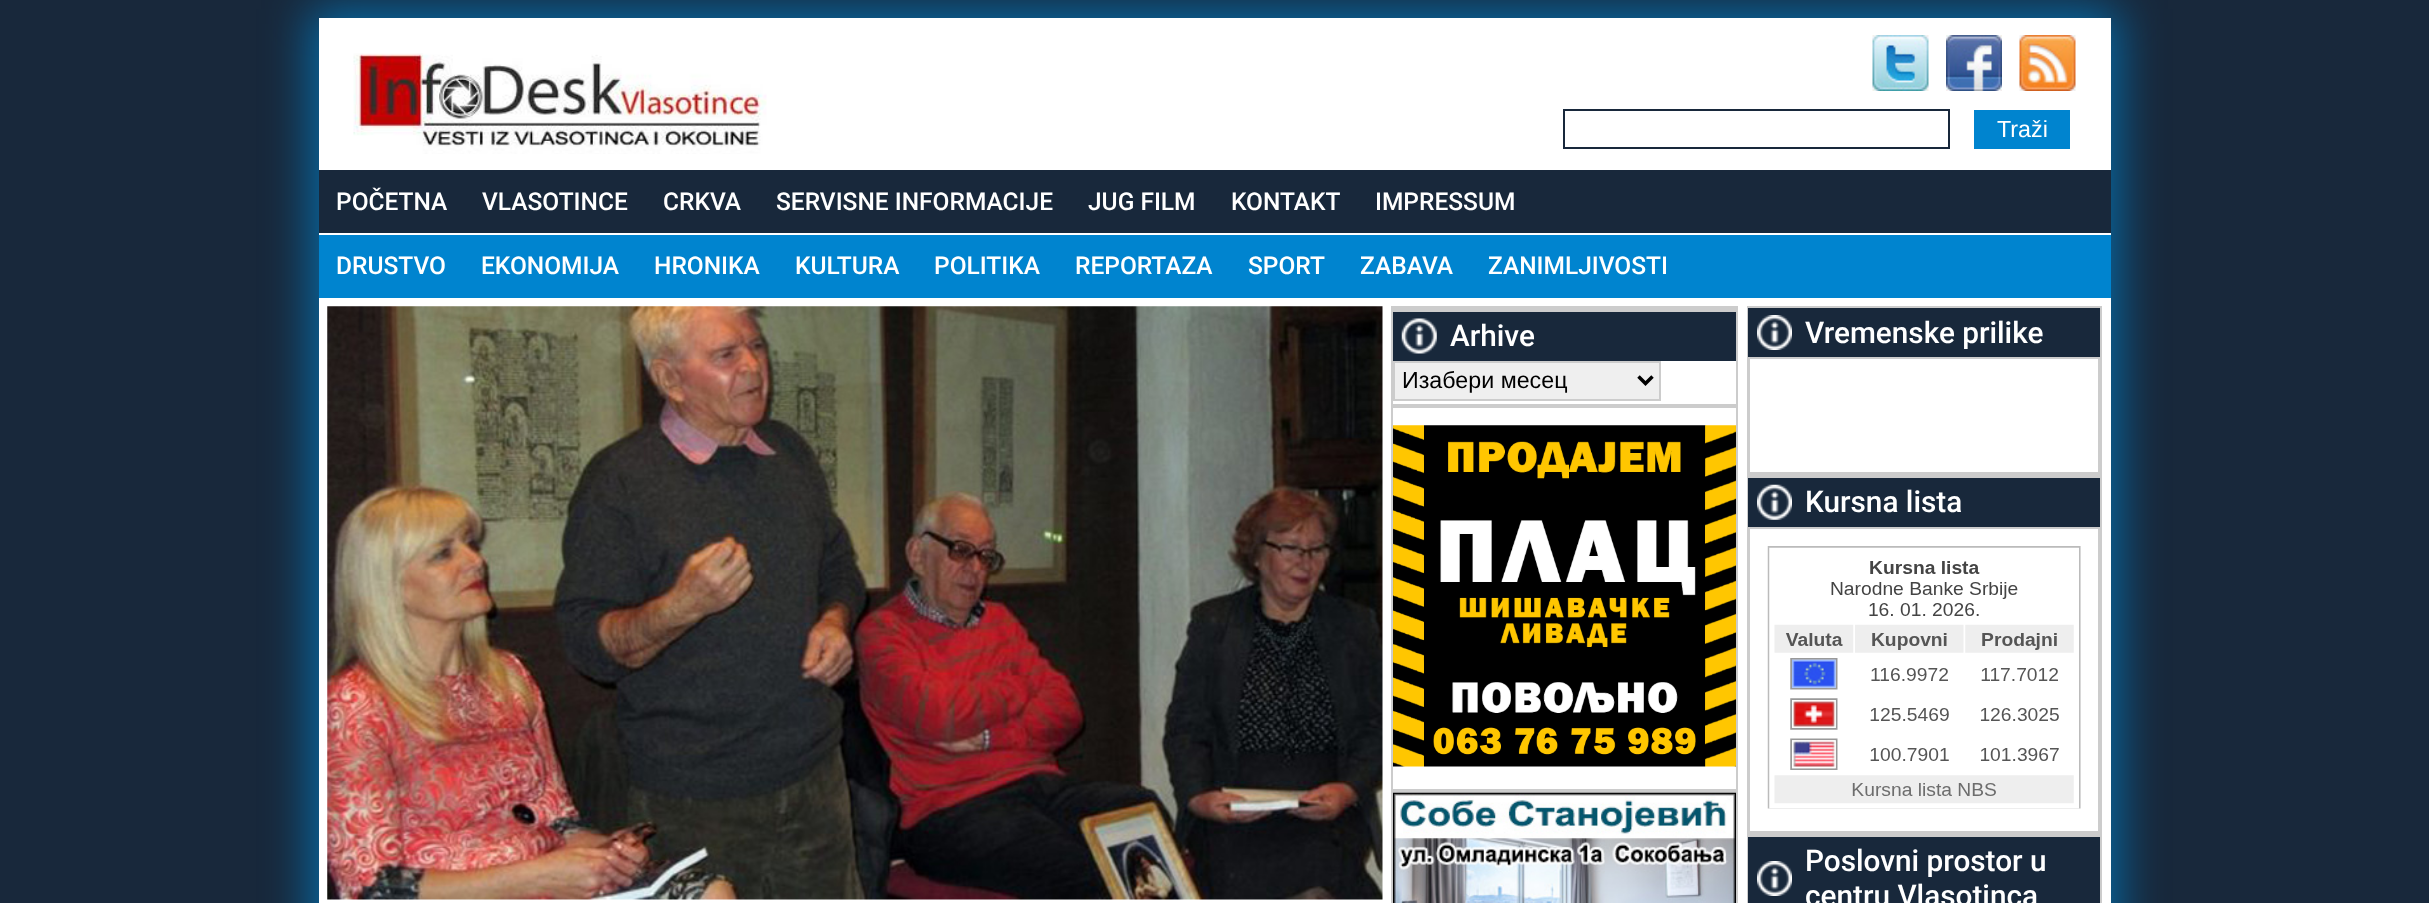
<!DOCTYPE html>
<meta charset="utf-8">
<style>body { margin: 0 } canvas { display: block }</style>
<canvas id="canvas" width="2429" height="903"></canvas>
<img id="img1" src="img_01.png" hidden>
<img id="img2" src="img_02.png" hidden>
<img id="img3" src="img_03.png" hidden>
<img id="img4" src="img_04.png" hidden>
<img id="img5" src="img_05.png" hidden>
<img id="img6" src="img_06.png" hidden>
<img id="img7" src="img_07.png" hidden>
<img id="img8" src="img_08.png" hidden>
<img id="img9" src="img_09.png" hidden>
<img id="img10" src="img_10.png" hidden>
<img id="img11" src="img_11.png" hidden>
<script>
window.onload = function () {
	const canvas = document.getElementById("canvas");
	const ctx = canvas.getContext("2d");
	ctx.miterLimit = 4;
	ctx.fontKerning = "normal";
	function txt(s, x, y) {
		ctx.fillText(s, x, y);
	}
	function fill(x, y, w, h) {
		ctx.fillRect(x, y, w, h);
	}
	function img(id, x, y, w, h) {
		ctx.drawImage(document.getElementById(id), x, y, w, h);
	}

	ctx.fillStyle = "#18283B";
	fill(0, 0, 2429, 903);
	ctx.fillStyle = "rgba(0, 132, 207, 0.71)";
	ctx.filter = "blur(23px)";
	ctx.beginPath();
	ctx.rect(310, 9, 1809, 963);
	ctx.fill();
	ctx.filter = "none";
	ctx.fillStyle = "#FFFFFF";
	fill(319, 18, 1792, 885);
	img("img1", 353, 53, 414, 101);
	img("img2", 1872, 35, 57, 56);
	img("img3", 1946, 35, 56, 56);
	img("img4", 2019, 35, 57, 56);
	ctx.strokeStyle = "#18283B";
	ctx.lineWidth = 2;
	ctx.strokeRect(1564, 110, 385, 38);
	ctx.fillStyle = "#0084CF";
	fill(1974, 110, 96, 39);
	ctx.fillStyle = "#18283B";
	fill(319, 170, 1792, 63);
	ctx.fillStyle = "#0084CF";
	fill(319, 235, 1792, 63);
	img("img5", 327, 306, 1056, 594);
	ctx.fillStyle = "#CCCCCC";
	fill(1391, 306, 347, 4);
	ctx.strokeStyle = "#CCCCCC";
	ctx.strokeRect(1392, 311, 345, 94);
	ctx.fillStyle = "#18283B";
	fill(1393, 312, 343, 49);
	img("img6", 1401, 318, 36, 36);
	ctx.fillStyle = "#EFEFEF";
	ctx.beginPath();
	ctx.rect(1394, 362, 266, 38);
	ctx.fill();
	ctx.stroke();
	ctx.beginPath();
	ctx.moveTo(1638.5, 376.5);
	ctx.lineTo(1645.5, 383.5);
	ctx.lineTo(1652.5, 376.5);
	ctx.strokeStyle = "#000000";
	ctx.lineWidth = 3.5;
	ctx.stroke();
	ctx.strokeStyle = "#CCCCCC";
	ctx.lineWidth = 2;
	ctx.strokeRect(1392, 407, 345, 383);
	img("img7", 1393, 425, 343, 342);
	ctx.strokeRect(1392, 792, 345, 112);
	img("img8", 1393, 792, 343, 111);
	ctx.strokeRect(1748, 307, 353, 168);
	ctx.fillStyle = "#18283B";
	fill(1748, 308, 352, 49);
	img("img9", 1757, 315, 35, 35);
	ctx.strokeRect(1749, 358, 350, 115);
	ctx.strokeRect(1748, 477, 353, 357);
	fill(1748, 478, 352, 49);
	img("img10", 1757, 484, 35, 36);
	ctx.strokeRect(1749, 528, 350, 304);
	img("img11", 1767, 546, 314, 263);
	ctx.strokeRect(1748, 836, 353, 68);
	fill(1748, 837, 352, 66);
	img("img9", 1757, 861, 35, 35);
	ctx.font = "23.25px Liberation Sans";
	ctx.fillStyle = "#FFFFFF";
	txt("Traži", 1997, 137);
	ctx.font = "500 24.5px Roboto";
	txt("POČETNA", 336, 210);
	txt("VLASOTINCE", 482, 210);
	txt("CRKVA", 663, 210);
	txt("SERVISNE INFORMACIJE", 776, 210);
	txt("JUG FILM", 1088, 210);
	txt("KONTAKT", 1231, 210);
	txt("IMPRESSUM", 1375, 210);
	txt("DRUSTVO", 336, 274);
	txt("EKONOMIJA", 481, 274);
	txt("HRONIKA", 654, 274);
	txt("KULTURA", 795, 274);
	txt("POLITIKA", 934, 274);
	txt("REPORTAZA", 1075, 274);
	txt("SPORT", 1248, 274);
	txt("ZABAVA", 1360, 274);
	txt("ZANIMLJIVOSTI", 1488, 274);
	ctx.font = "500 29.75px Roboto";
	txt("Arhive", 1450, 346);
	ctx.font = "23.25px Liberation Sans";
	ctx.fillStyle = "#000000";
	txt("Изабери месец", 1402, 388);
	ctx.font = "500 29.75px Roboto";
	ctx.fillStyle = "#FFFFFF";
	txt("Vremenske prilike", 1805, 343);
	txt("Kursna lista", 1805, 512);
	txt("Poslovni prostor u", 1805, 871);
	txt("centru Vlasotinca", 1805, 906);
};
</script>
